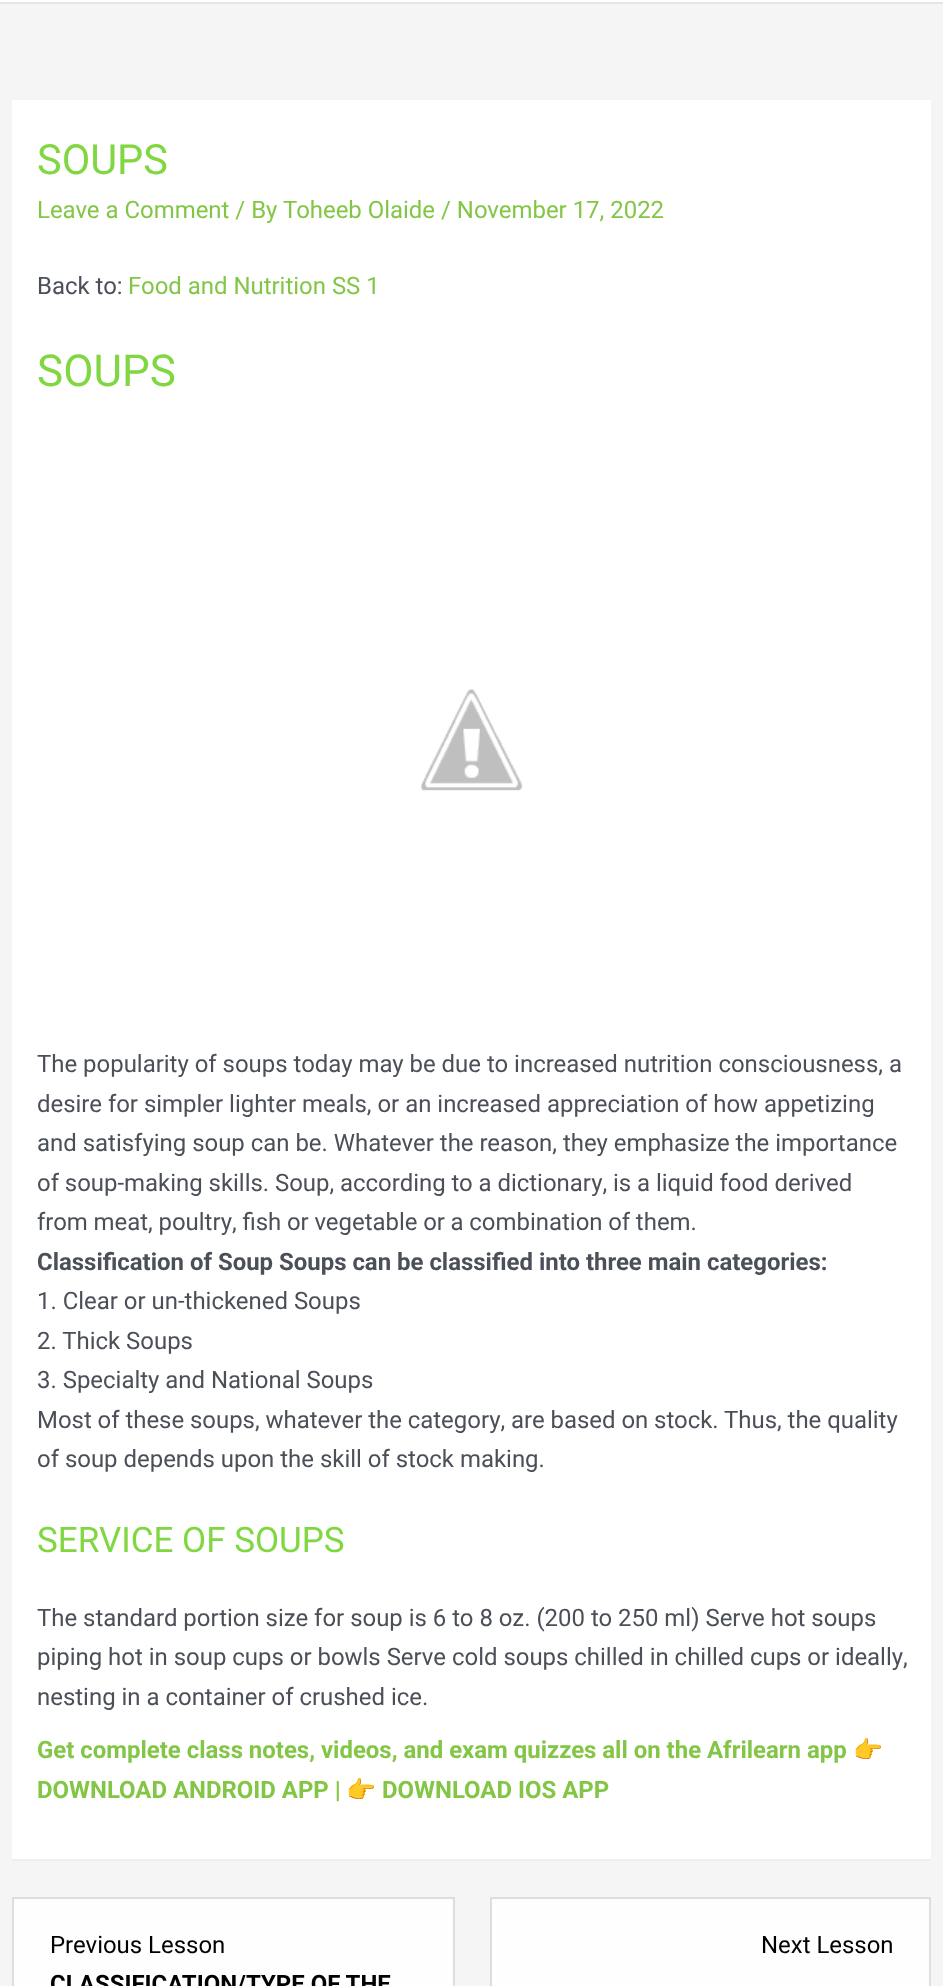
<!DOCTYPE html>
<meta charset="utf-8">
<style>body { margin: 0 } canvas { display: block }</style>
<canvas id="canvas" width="943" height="1986"></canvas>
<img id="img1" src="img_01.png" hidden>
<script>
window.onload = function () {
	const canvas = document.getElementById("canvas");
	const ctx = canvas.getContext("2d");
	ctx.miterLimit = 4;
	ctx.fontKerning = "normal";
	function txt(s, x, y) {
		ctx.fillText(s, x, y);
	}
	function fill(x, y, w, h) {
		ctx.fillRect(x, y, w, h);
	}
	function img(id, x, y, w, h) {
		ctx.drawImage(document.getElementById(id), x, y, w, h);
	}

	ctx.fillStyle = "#F5F5F5";
	fill(0, 0, 943, 1986);
	ctx.fillStyle = "#FFFFFF";
	fill(0, 0, 943, 2);
	ctx.fillStyle = "#E5E5E5";
	fill(0, 2, 943, 2);
	ctx.fillStyle = "#FFFFFF";
	fill(12, 100, 919, 1759);
	img("img1", 421, 689, 102, 102);
	ctx.fillStyle = "#EEEEEE";
	fill(12, 1859, 919, 2);
	ctx.strokeStyle = "#DEDEDE";
	ctx.lineWidth = 2;
	ctx.strokeRect(13, 1898, 441, 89);
	ctx.fillStyle = "#FEFEFE";
	fill(14, 1899, 439, 87);
	ctx.strokeRect(491, 1898, 439, 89);
	fill(492, 1899, 437, 87);
	ctx.font = "41.5px Roboto";
	ctx.fillStyle = "#81D742";
	txt("SOUPS", 37, 174);
	ctx.font = "23.95px Roboto";
	ctx.fillStyle = "#83C646";
	txt("Leave a Comment / By", 37, 218);
	txt("Toheeb Olaide / November 17, 2022", 283, 218);
	ctx.fillStyle = "#4B4F58";
	txt("Back to:", 37, 294);
	ctx.fillStyle = "#83C646";
	txt("Food and Nutrition SS 1", 128, 294);
	ctx.font = "44px Roboto";
	ctx.fillStyle = "#81D742";
	txt("SOUPS", 37, 386);
	ctx.font = "23.95px Roboto";
	ctx.fillStyle = "#4B4F58";
	txt("The popularity of soups today may be due to increased nutrition consciousness, a", 37, 1072);
	txt("desire for simpler lighter meals, or an increased appreciation of how appetizing", 37, 1112);
	txt("and satisfying soup can be. Whatever the reason, they emphasize the importance", 37, 1151);
	ctx.wordSpacing = "-0.1px";
	txt("of soup-making skills. Soup, according to a dictionary, is a liquid food derived", 37, 1191);
	ctx.wordSpacing = "-0.25px";
	txt("from meat, poultry, fish or vegetable or a combination of them.", 37, 1230);
	ctx.wordSpacing = "0px";
	ctx.font = "bold 23.95px Roboto";
	txt("Classification of Soup Soups can be classified into three main categories:", 37, 1270);
	ctx.font = "23.95px Roboto";
	txt("1. Clear or un-thickened Soups", 37, 1309);
	txt("2. Thick Soups", 37, 1349);
	txt("3. Specialty and National Soups", 37, 1388);
	ctx.wordSpacing = "-0.1px";
	txt("Most of these soups, whatever the category, are based on stock. Thus, the quality", 37, 1428);
	ctx.wordSpacing = "0px";
	txt("of soup depends upon the skill of stock making.", 37, 1467);
	ctx.font = "35px Roboto";
	ctx.fillStyle = "#81D742";
	txt("SERVICE OF SOUPS", 37, 1552);
	ctx.font = "23.95px Roboto";
	ctx.fillStyle = "#4B4F58";
	txt("The standard portion size for soup is 6 to 8 oz. (200 to 250 ml) Serve hot soups", 37, 1626);
	txt("piping hot in soup cups or bowls Serve cold soups chilled in chilled cups or ideally,", 37, 1665);
	txt("nesting in a container of crushed ice.", 37, 1705);
	ctx.font = "bold 23.95px Roboto";
	ctx.fillStyle = "#83C646";
	txt("Get complete class notes, videos, and exam quizzes all on the Afrilearn app", 37, 1758);
	ctx.font = "bold 23.95px Noto Color Emoji";
	txt("👉", 853, 1758);
	ctx.font = "bold 23.95px Roboto";
	txt("DOWNLOAD ANDROID APP |", 37, 1798);
	ctx.font = "bold 23.95px Noto Color Emoji";
	txt("👉", 346, 1798);
	ctx.font = "bold 23.95px Roboto";
	txt("DOWNLOAD IOS APP", 382, 1798);
	ctx.font = "23.95px Roboto";
	ctx.fillStyle = "#010101";
	txt("Previous Lesson", 50, 1953);
	ctx.font = "bold 23.95px Roboto";
	txt("CLASSIFICATION/TYPE OF THE", 50, 1992);
	ctx.font = "23.95px Roboto";
	txt("Next Lesson", 761, 1953);
};
</script>
